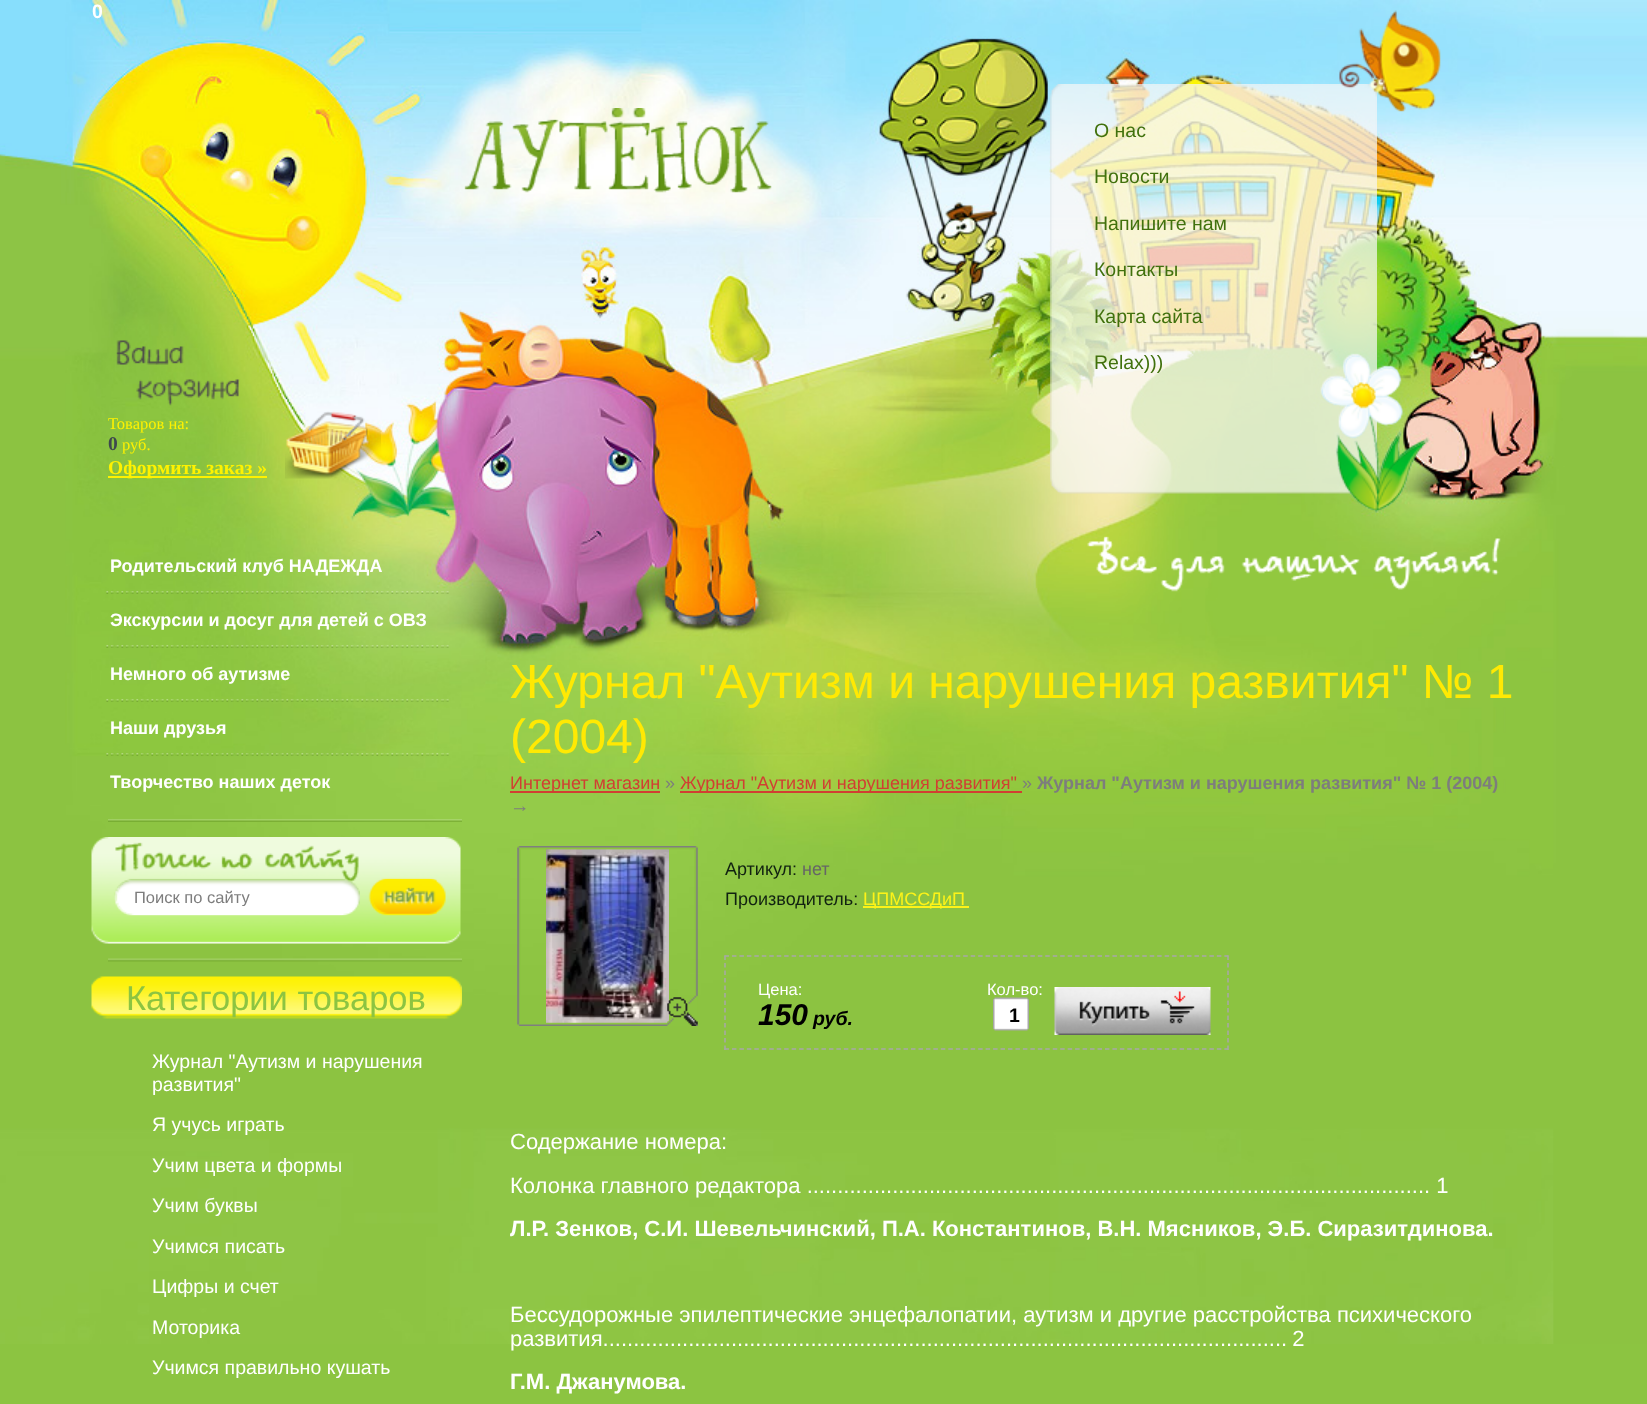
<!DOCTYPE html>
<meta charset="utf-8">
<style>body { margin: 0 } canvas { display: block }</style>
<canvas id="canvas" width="1647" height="1404"></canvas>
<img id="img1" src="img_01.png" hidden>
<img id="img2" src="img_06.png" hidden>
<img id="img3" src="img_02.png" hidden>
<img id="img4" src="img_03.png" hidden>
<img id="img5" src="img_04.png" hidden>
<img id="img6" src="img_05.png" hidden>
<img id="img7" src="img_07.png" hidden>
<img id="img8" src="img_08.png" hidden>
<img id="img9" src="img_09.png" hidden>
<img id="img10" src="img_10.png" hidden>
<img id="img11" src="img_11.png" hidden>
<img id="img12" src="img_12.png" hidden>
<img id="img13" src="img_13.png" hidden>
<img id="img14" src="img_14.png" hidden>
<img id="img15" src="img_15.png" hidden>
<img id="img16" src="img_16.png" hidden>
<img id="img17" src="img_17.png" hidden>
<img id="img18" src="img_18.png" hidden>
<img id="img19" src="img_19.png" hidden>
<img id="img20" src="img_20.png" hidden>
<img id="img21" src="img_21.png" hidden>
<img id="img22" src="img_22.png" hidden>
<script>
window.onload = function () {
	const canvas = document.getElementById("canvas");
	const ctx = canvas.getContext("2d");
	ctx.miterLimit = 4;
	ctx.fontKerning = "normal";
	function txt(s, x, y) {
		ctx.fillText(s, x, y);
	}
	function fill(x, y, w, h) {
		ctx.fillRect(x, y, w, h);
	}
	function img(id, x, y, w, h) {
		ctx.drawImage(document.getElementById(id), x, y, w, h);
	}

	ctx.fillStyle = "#8CC441";
	fill(0, 0, 1647, 1404);
	img("img1", 0, 0, 1647, 1344);
	img("img2", 1050, 84, 327, 410);
	img("img3", 1339, 10, 102, 102);
	img("img4", 116, 340, 124, 66);
	img("img5", 285, 411, 96, 68);
	img("img6", 464, 108, 308, 85);
	img("img7", 1321, 355, 109, 158);
	ctx.fillStyle = "#FEF200";
	fill(108, 476, 159, 2);
	img("img8", 1087, 536, 414, 56);
	img("img9", 108, 819, 354, 3);
	img("img10", 106, 591, 343, 3);
	img("img11", 106, 645, 343, 3);
	img("img12", 106, 699, 343, 3);
	img("img13", 106, 753, 343, 3);
	img("img14", 91, 837, 370, 107);
	img("img15", 115, 879, 245, 36);
	img("img16", 370, 879, 67, 35);
	img("img17", 108, 958, 354, 4);
	img("img18", 91, 976, 371, 43);
	ctx.fillStyle = "#D13F32";
	fill(510, 791, 150, 2);
	fill(680, 791, 342, 2);
	img("img19", 517, 846, 181, 180);
	img("img20", 517, 847, 181, 179);
	ctx.fillStyle = "#FDF318";
	fill(863, 906, 106, 2);
	ctx.beginPath();
	ctx.moveTo(724.5, 956);
	ctx.lineTo(1228.5, 956);
	ctx.strokeStyle = "#A8A8A8";
	ctx.lineWidth = 1.5;
	ctx.setLineDash([4.5, 2.96]);
	ctx.stroke();
	ctx.beginPath();
	ctx.moveTo(1228, 955.5);
	ctx.lineTo(1228, 1050);
	ctx.setLineDash([4.5, 3]);
	ctx.stroke();
	ctx.beginPath();
	ctx.moveTo(724.5, 1049);
	ctx.lineTo(1228.5, 1049);
	ctx.setLineDash([4.5, 2.96]);
	ctx.stroke();
	ctx.beginPath();
	ctx.moveTo(725, 955.5);
	ctx.lineTo(725, 1050);
	ctx.setLineDash([4.5, 3]);
	ctx.stroke();
	img("img21", 993, 997, 36, 34);
	img("img22", 1054, 987, 157, 48);
	ctx.font = "bold 19.5px Liberation Sans";
	ctx.fillStyle = "#FFFFFF";
	txt("0", 92, 18);
	ctx.font = "19.5px Liberation Sans";
	ctx.fillStyle = "#41710D";
	txt("О нас", 1094, 137);
	txt("Новости", 1094, 183);
	txt("Напишите нам", 1094, 230);
	txt("Контакты", 1094, 276);
	txt("Карта сайта", 1094, 323);
	txt("Relax)))", 1094, 369);
	ctx.font = "16.5px Liberation Serif";
	ctx.fillStyle = "#FEF200";
	txt("Товаров на:", 108, 429);
	ctx.font = "bold 19.5px Liberation Serif";
	ctx.fillStyle = "#3E474E";
	txt("0", 108, 450);
	ctx.font = "16.5px Liberation Serif";
	ctx.fillStyle = "#FEF200";
	txt("руб.", 122, 450);
	ctx.font = "bold 19.5px Liberation Serif";
	txt("Оформить заказ »", 108, 474);
	ctx.font = "bold 18px Liberation Sans";
	ctx.fillStyle = "#FFFFFF";
	txt("Родительский клуб НАДЕЖДА", 110, 572);
	txt("Экскурсии и досуг для детей с ОВЗ", 110, 626);
	txt("Немного об аутизме", 110, 680);
	txt("Наши друзья", 110, 734);
	txt("Творчество наших деток", 110, 788);
	ctx.save();
	ctx.beginPath();
	ctx.rect(134, 888, 208, 18);
	ctx.clip();
	ctx.font = "16.5px Liberation Sans";
	ctx.fillStyle = "#7D7D7D";
	txt("Поиск по сайту", 134, 903);
	ctx.restore();
	ctx.font = "34.5px Liberation Sans";
	ctx.fillStyle = "#8CC441";
	txt("Категории товаров", 126, 1010);
	ctx.font = "19.5px Liberation Sans";
	ctx.fillStyle = "#FFFFFF";
	txt("Журнал \"Аутизм и нарушения", 152, 1068);
	txt("развития\"", 152, 1091);
	txt("Я учусь играть", 152, 1131);
	txt("Учим цвета и формы", 152, 1172);
	txt("Учим буквы", 152, 1212);
	txt("Учимся писать", 152, 1253);
	txt("Цифры и счет", 152, 1293);
	txt("Моторика", 152, 1334);
	txt("Учимся правильно кушать", 152, 1374);
	ctx.font = "48px Liberation Sans";
	ctx.fillStyle = "#FFE903";
	txt("Журнал \"Аутизм и нарушения развития\" № 1", 510, 698);
	txt("(2004)", 510, 753);
	ctx.font = "18px Liberation Sans";
	ctx.fillStyle = "#D13F32";
	txt("Интернет магазин", 510, 789);
	ctx.fillStyle = "#7D7D7D";
	txt("»", 665, 789);
	ctx.fillStyle = "#D13F32";
	txt("Журнал \"Аутизм и нарушения развития\"", 680, 789);
	ctx.fillStyle = "#7D7D7D";
	txt("»", 1022, 789);
	ctx.font = "bold 18px Liberation Sans";
	txt("Журнал \"Аутизм и нарушения развития\" № 1 (2004)", 1037, 789);
	ctx.font = "19.5px Liberation Sans";
	txt("→", 510, 812);
	ctx.font = "18px Liberation Sans";
	ctx.fillStyle = "#112211";
	txt("Артикул:", 725, 875);
	ctx.fillStyle = "#666666";
	txt("нет", 802, 875);
	ctx.fillStyle = "#112211";
	txt("Производитель:", 725, 905);
	ctx.fillStyle = "#FDF318";
	txt("ЦПМССДиП", 863, 905);
	ctx.font = "16.5px Liberation Sans";
	ctx.fillStyle = "#FFFFFF";
	txt("Цена:", 758, 995);
	ctx.font = "italic bold 30px Liberation Sans";
	ctx.fillStyle = "#000000";
	txt("150", 758, 1025);
	ctx.font = "italic bold 19.5px Liberation Sans";
	txt("руб.", 813, 1025);
	ctx.font = "16.5px Liberation Sans";
	ctx.fillStyle = "#FFFFFF";
	txt("Кол-во:", 987, 995);
	ctx.font = "bold 19.5px Liberation Sans";
	ctx.fillStyle = "#000000";
	txt("1", 1009, 1022);
	ctx.font = "22px Liberation Sans";
	ctx.fillStyle = "#FFFFFF";
	txt("Содержание номера:", 510, 1149);
	txt("Колонка главного редактора ...................................................................................................... 1", 510, 1193);
	ctx.font = "bold 22px Liberation Sans";
	txt("Л.Р. Зенков, С.И. Шевельчинский, П.А. Константинов, В.Н. Мясников, Э.Б. Сиразитдинова.", 510, 1236);
	ctx.font = "22px Liberation Sans";
	txt("Бессудорожные эпилептические энцефалопатии, аутизм и другие расстройства психического", 510, 1322);
	ctx.wordSpacing = "-1px";
	txt("развития................................................................................................................ 2", 510, 1346);
	ctx.wordSpacing = "0px";
	ctx.font = "bold 22px Liberation Sans";
	txt("Г.М. Джанумова.", 510, 1389);
};
</script>
